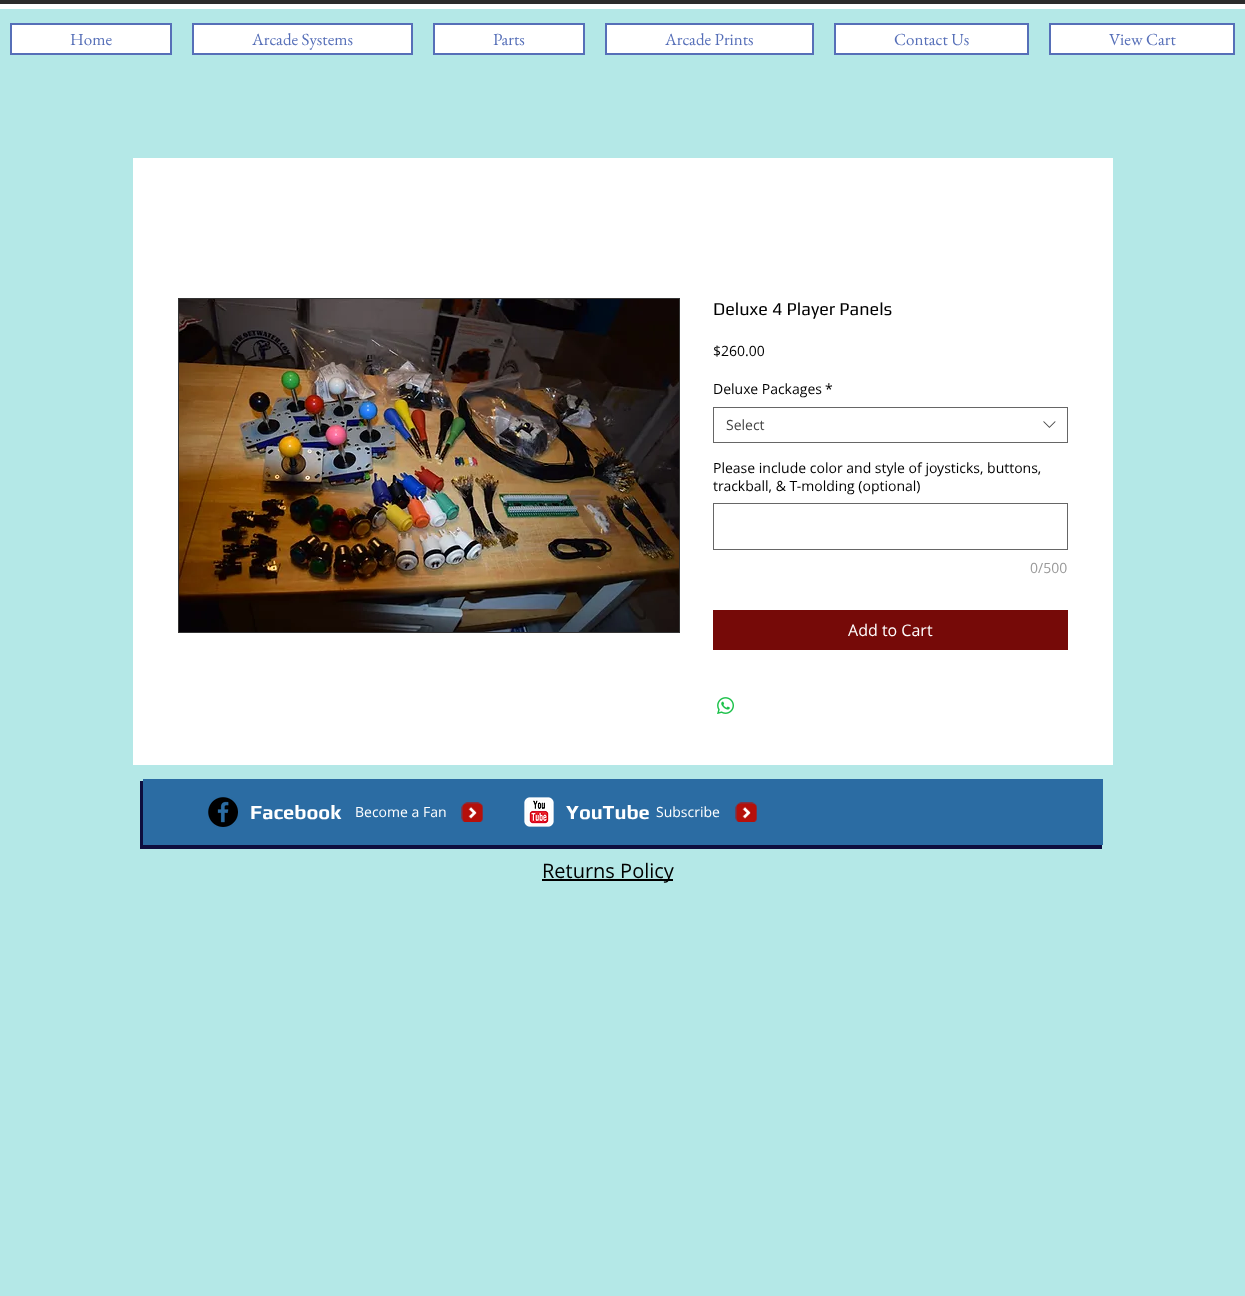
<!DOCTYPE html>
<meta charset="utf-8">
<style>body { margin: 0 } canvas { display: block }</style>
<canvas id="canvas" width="1245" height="1296"></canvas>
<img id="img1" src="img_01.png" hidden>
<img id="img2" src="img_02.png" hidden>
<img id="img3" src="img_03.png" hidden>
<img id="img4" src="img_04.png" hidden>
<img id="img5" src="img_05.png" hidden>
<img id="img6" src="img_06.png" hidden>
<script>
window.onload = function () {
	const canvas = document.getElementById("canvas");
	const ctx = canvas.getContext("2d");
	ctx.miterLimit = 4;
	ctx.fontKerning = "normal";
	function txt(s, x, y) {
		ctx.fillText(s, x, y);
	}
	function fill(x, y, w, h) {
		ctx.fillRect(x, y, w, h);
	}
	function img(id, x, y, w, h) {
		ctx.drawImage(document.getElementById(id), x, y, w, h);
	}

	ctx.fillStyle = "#B4E8E7";
	fill(0, 0, 1245, 1296);
	ctx.fillStyle = "#2B2B2B";
	fill(0, 0, 1245, 4);
	ctx.fillStyle = "#FFFFFF";
	fill(0, 4, 1245, 5);
	ctx.beginPath();
	ctx.rect(11, 24, 160, 30);
	ctx.fill();
	ctx.strokeStyle = "#566FB8";
	ctx.lineWidth = 2;
	ctx.stroke();
	ctx.beginPath();
	ctx.rect(193, 24, 219, 30);
	ctx.fill();
	ctx.stroke();
	ctx.beginPath();
	ctx.rect(434, 24, 150, 30);
	ctx.fill();
	ctx.stroke();
	ctx.beginPath();
	ctx.rect(606, 24, 207, 30);
	ctx.fill();
	ctx.stroke();
	ctx.beginPath();
	ctx.rect(835, 24, 193, 30);
	ctx.fill();
	ctx.stroke();
	ctx.beginPath();
	ctx.rect(1050, 24, 184, 30);
	ctx.fill();
	ctx.stroke();
	fill(133, 158, 980, 607);
	ctx.strokeStyle = "#333333";
	ctx.lineWidth = 1;
	ctx.strokeRect(178.5, 298.5, 501, 334);
	img("img1", 179, 299, 500, 333);
	ctx.strokeStyle = "#666666";
	ctx.strokeRect(713.5, 407.5, 354, 35);
	img("img2", 1043, 421, 13, 7);
	ctx.strokeRect(713.5, 503.5, 354, 46);
	ctx.fillStyle = "#760A08";
	fill(713, 610, 355, 40);
	img("img3", 717, 697, 17, 17);
	ctx.fillStyle = "#0E0E3F";
	ctx.beginPath();
	ctx.moveTo(140, 781);
	ctx.lineTo(140, 849);
	ctx.lineTo(1102, 849);
	ctx.lineTo(1102, 845);
	ctx.lineTo(143, 845);
	ctx.lineTo(143, 781);
	ctx.closePath();
	ctx.fill();
	ctx.fillStyle = "#2B6CA3";
	fill(143, 779, 960, 66);
	img("img4", 208, 797, 30, 30);
	img("img5", 461, 802, 22, 20);
	img("img6", 524, 797, 30, 30);
	img("img5", 735, 802, 22, 20);
	ctx.fillStyle = "#000000";
	fill(542, 879, 131, 2);
	ctx.font = "17px EB Garamond";
	ctx.fillStyle = "#566FB8";
	txt("Home", 70, 45);
	txt("Arcade Systems", 252, 45);
	txt("Parts", 493, 45);
	txt("Arcade Prints", 665, 45);
	txt("Contact Us", 894, 45);
	txt("View Cart", 1109, 45);
	ctx.font = "18px Play";
	ctx.fillStyle = "#000000";
	txt("Deluxe 4 Player Panels", 713, 315);
	ctx.font = "14px Open Sans";
	txt("$260.00", 713, 356);
	txt("Deluxe Packages", 713, 394);
	txt("*", 825, 394);
	ctx.fillStyle = "#444444";
	txt("Select", 726, 430);
	ctx.fillStyle = "#000000";
	txt("Please include color and style of joysticks, buttons,", 713, 473);
	txt("trackball, & T-molding (optional)", 713, 491);
	ctx.fillStyle = "#999999";
	txt("0/500", 1030, 573);
	ctx.font = "16px Open Sans";
	ctx.fillStyle = "#FFFFFF";
	txt("Add to Cart", 848, 636);
	ctx.font = "bold 20px Play";
	txt("Facebook", 250, 819);
	ctx.font = "14px Open Sans";
	txt("Become a Fan", 355, 817);
	ctx.font = "bold 20px Play";
	txt("YouTube", 566, 819);
	ctx.font = "14px Open Sans";
	txt("Subscribe", 656, 817);
	ctx.font = "20px Open Sans";
	ctx.fillStyle = "#000000";
	txt("Returns Policy", 542, 878);
};
</script>
